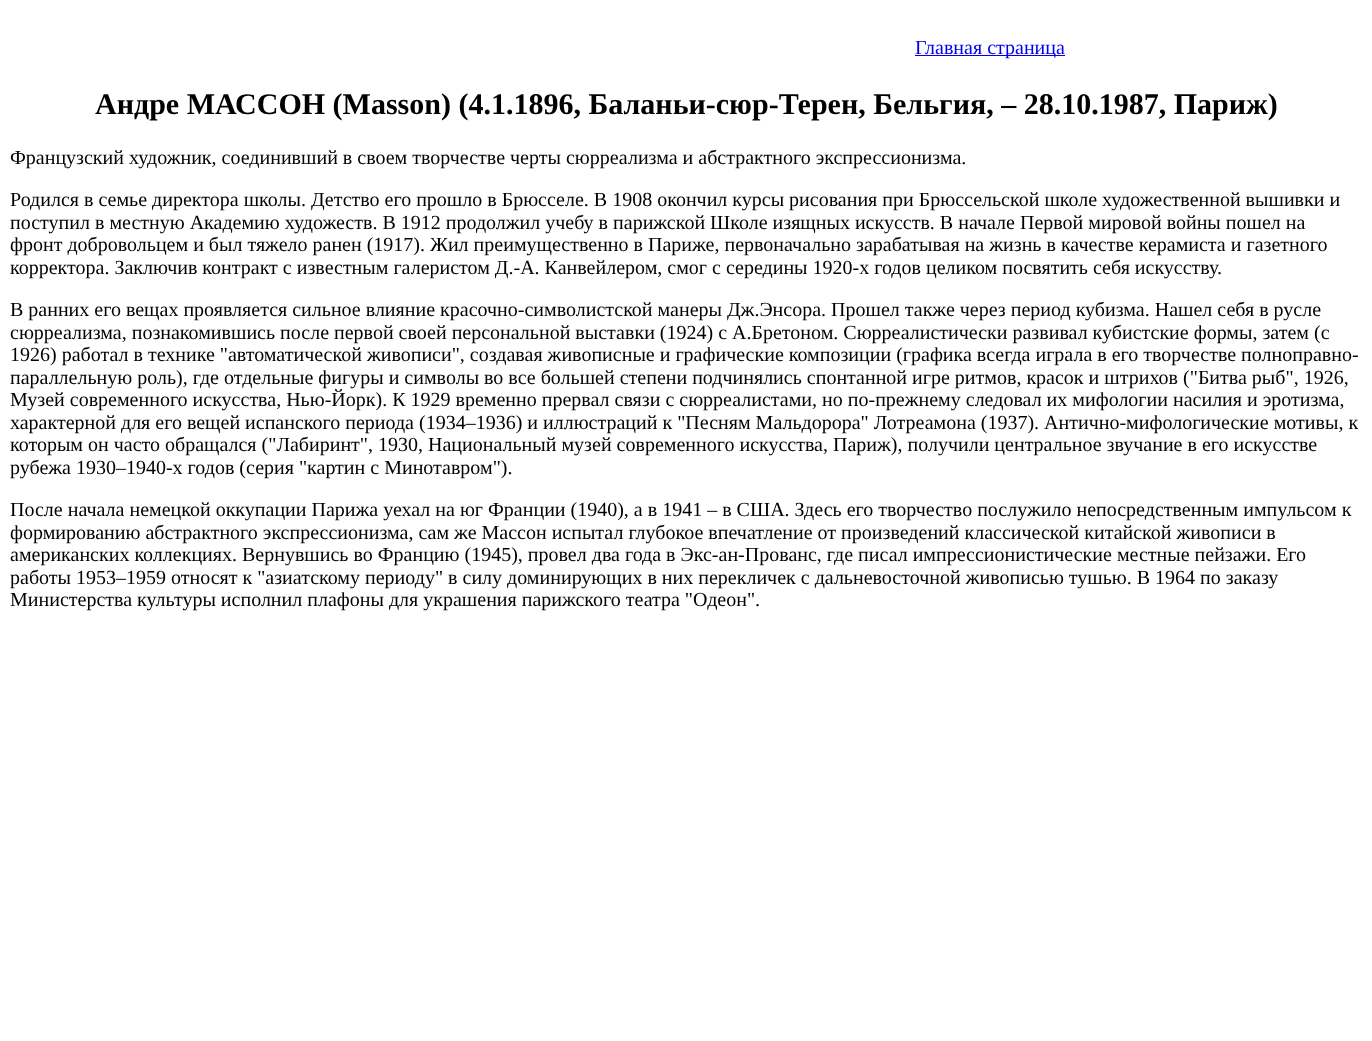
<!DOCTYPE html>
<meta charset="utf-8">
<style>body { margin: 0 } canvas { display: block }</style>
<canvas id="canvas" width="1372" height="1041"></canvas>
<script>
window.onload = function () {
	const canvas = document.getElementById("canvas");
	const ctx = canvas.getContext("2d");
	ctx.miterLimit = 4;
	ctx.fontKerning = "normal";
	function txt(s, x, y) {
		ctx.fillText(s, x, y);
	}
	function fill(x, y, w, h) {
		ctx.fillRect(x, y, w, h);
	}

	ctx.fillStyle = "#FFFFFF";
	fill(0, 0, 1372, 1041);
	ctx.fillStyle = "#0000EE";
	fill(915, 55, 150, 1);
	ctx.font = "20px Liberation Serif";
	txt("Главная страница", 915, 54);
	ctx.font = "bold 30px Liberation Serif";
	ctx.fillStyle = "#000000";
	txt("Андре МАССОН (Masson) (4.1.1896, Баланьи-сюр-Терен, Бельгия, – 28.10.1987, Париж)", 95, 114);
	ctx.font = "20px Liberation Serif";
	txt("Французский художник, соединивший в своем творчестве черты сюрреализма и абстрактного экспрессионизма.", 10, 164);
	txt("Родился в семье директора школы. Детство его прошло в Брюсселе. В 1908 окончил курсы рисования при Брюссельской школе художественной вышивки и", 10, 206);
	txt("поступил в местную Академию художеств. В 1912 продолжил учебу в парижской Школе изящных искусств. В начале Первой мировой войны пошел на", 10, 229);
	txt("фронт добровольцем и был тяжело ранен (1917). Жил преимущественно в Париже, первоначально зарабатывая на жизнь в качестве керамиста и газетного", 10, 251);
	txt("корректора. Заключив контракт с известным галеристом Д.-А. Канвейлером, смог с середины 1920-х годов целиком посвятить себя искусству.", 10, 274);
	txt("В ранних его вещах проявляется сильное влияние красочно-символистской манеры Дж.Энсора. Прошел также через период кубизма. Нашел себя в русле", 10, 316);
	txt("сюрреализма, познакомившись после первой своей персональной выставки (1924) с А.Бретоном. Сюрреалистически развивал кубистские формы, затем (с", 10, 339);
	txt("1926) работал в технике \"автоматической живописи\", создавая живописные и графические композиции (графика всегда играла в его творчестве полноправно-", 10, 361);
	txt("параллельную роль), где отдельные фигуры и символы во все большей степени подчинялись спонтанной игре ритмов, красок и штрихов (\"Битва рыб\", 1926,", 10, 384);
	txt("Музей современного искусства, Нью-Йорк). К 1929 временно прервал связи с сюрреалистами, но по-прежнему следовал их мифологии насилия и эротизма,", 10, 406);
	txt("характерной для его вещей испанского периода (1934–1936) и иллюстраций к \"Песням Мальдорора\" Лотреамона (1937). Антично-мифологические мотивы, к", 10, 429);
	txt("которым он часто обращался (\"Лабиринт\", 1930, Национальный музей современного искусства, Париж), получили центральное звучание в его искусстве", 10, 451);
	txt("рубежа 1930–1940-х годов (серия \"картин с Минотавром\").", 10, 474);
	txt("После начала немецкой оккупации Парижа уехал на юг Франции (1940), а в 1941 – в США. Здесь его творчество послужило непосредственным импульсом к", 10, 516);
	txt("формированию абстрактного экспрессионизма, сам же Массон испытал глубокое впечатление от произведений классической китайской живописи в", 10, 539);
	txt("американских коллекциях. Вернувшись во Францию (1945), провел два года в Экс-ан-Прованс, где писал импрессионистические местные пейзажи. Его", 10, 561);
	txt("работы 1953–1959 относят к \"азиатскому периоду\" в силу доминирующих в них перекличек с дальневосточной живописью тушью. В 1964 по заказу", 10, 584);
	txt("Министерства культуры исполнил плафоны для украшения парижского театра \"Одеон\".", 10, 606);
};
</script>
